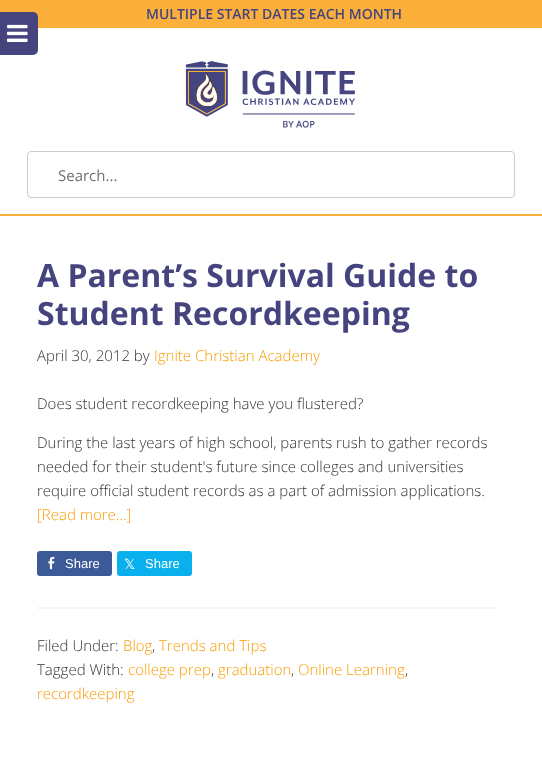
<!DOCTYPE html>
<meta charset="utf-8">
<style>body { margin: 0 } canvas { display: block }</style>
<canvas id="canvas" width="542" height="762"></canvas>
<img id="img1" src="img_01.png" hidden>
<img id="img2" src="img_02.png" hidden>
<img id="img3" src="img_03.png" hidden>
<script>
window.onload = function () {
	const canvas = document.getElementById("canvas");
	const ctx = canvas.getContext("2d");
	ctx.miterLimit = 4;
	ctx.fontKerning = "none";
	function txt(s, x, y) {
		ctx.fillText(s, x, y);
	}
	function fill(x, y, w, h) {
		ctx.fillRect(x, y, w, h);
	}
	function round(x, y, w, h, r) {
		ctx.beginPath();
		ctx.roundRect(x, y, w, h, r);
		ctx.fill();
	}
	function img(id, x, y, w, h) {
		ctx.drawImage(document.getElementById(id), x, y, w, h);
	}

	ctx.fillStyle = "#FFFFFF";
	fill(0, 0, 542, 762);
	ctx.fillStyle = "#FBB03B";
	fill(0, 0, 542, 28);
	ctx.fillStyle = "#45447F";
	ctx.beginPath();
	ctx.roundRect(0, 12, 38, 43, [0, 5, 5, 0]);
	ctx.fill();
	img("img1", 7, 24, 21, 18);
	ctx.fillStyle = "#FBB03B";
	fill(0, 214, 542, 2);
	img("img2", 185, 61, 170, 67);
	ctx.beginPath();
	ctx.roundRect(27.5, 151.5, 487, 46, 3.5);
	ctx.strokeStyle = "#CCCCCC";
	ctx.stroke();
	ctx.fillStyle = "#3D5A98";
	round(37, 551, 75, 25, 3);
	img("img3", 48, 556, 7, 14);
	ctx.fillStyle = "#09B0ED";
	round(117, 551, 75, 25, 3);
	ctx.fillStyle = "#F5F5F5";
	fill(37, 607, 458, 2);
	ctx.font = "600 14px Open Sans";
	ctx.fillStyle = "#45447F";
	txt("MULTIPLE START DATES EACH MONTH", 146, 19);
	ctx.font = "15px Open Sans";
	ctx.fillStyle = "#707070";
	txt("Search...", 58, 181);
	ctx.font = "bold 32px Open Sans";
	ctx.fillStyle = "#45447F";
	txt("A Parent’s Survival Guide to", 37, 287);
	txt("Student Recordkeeping", 37, 325);
	ctx.font = "300 15px Open Sans";
	ctx.fillStyle = "#333333";
	txt("April 30, 2012 by", 37, 361);
	ctx.fillStyle = "#F99C02";
	txt("Ignite Christian Academy", 154, 361);
	ctx.fillStyle = "#333333";
	txt("Does student recordkeeping have you flustered?", 37, 409);
	txt("During the last years of high school, parents rush to gather records", 37, 448);
	txt("needed for their student's future since colleges and universities", 37, 472);
	txt("require official student records as a part of admission applications.", 37, 496);
	ctx.fillStyle = "#F99C02";
	txt("[Read more…]", 37, 520);
	ctx.font = "13px Liberation Sans";
	ctx.fillStyle = "#FFFFFF";
	txt("Share", 65, 568);
	ctx.font = "14px DejaVu Sans";
	txt("𝕏", 124, 569);
	ctx.font = "13px Liberation Sans";
	txt("Share", 145, 568);
	ctx.font = "300 15px Open Sans";
	ctx.fillStyle = "#333333";
	txt("Filed Under:", 37, 651);
	ctx.fillStyle = "#F99C02";
	txt("Blog", 123, 651);
	ctx.fillStyle = "#333333";
	txt(",", 152, 651);
	ctx.fillStyle = "#F99C02";
	txt("Trends and Tips", 159, 651);
	ctx.fillStyle = "#333333";
	txt("Tagged With:", 37, 675);
	ctx.fillStyle = "#F99C02";
	txt("college prep", 128, 675);
	ctx.fillStyle = "#333333";
	txt(",", 211, 675);
	ctx.fillStyle = "#F99C02";
	txt("graduation", 218, 675);
	ctx.fillStyle = "#333333";
	txt(",", 291, 675);
	ctx.fillStyle = "#F99C02";
	txt("Online Learning", 298, 675);
	ctx.fillStyle = "#333333";
	txt(",", 405, 675);
	ctx.fillStyle = "#F99C02";
	txt("recordkeeping", 37, 699);
};
</script>
